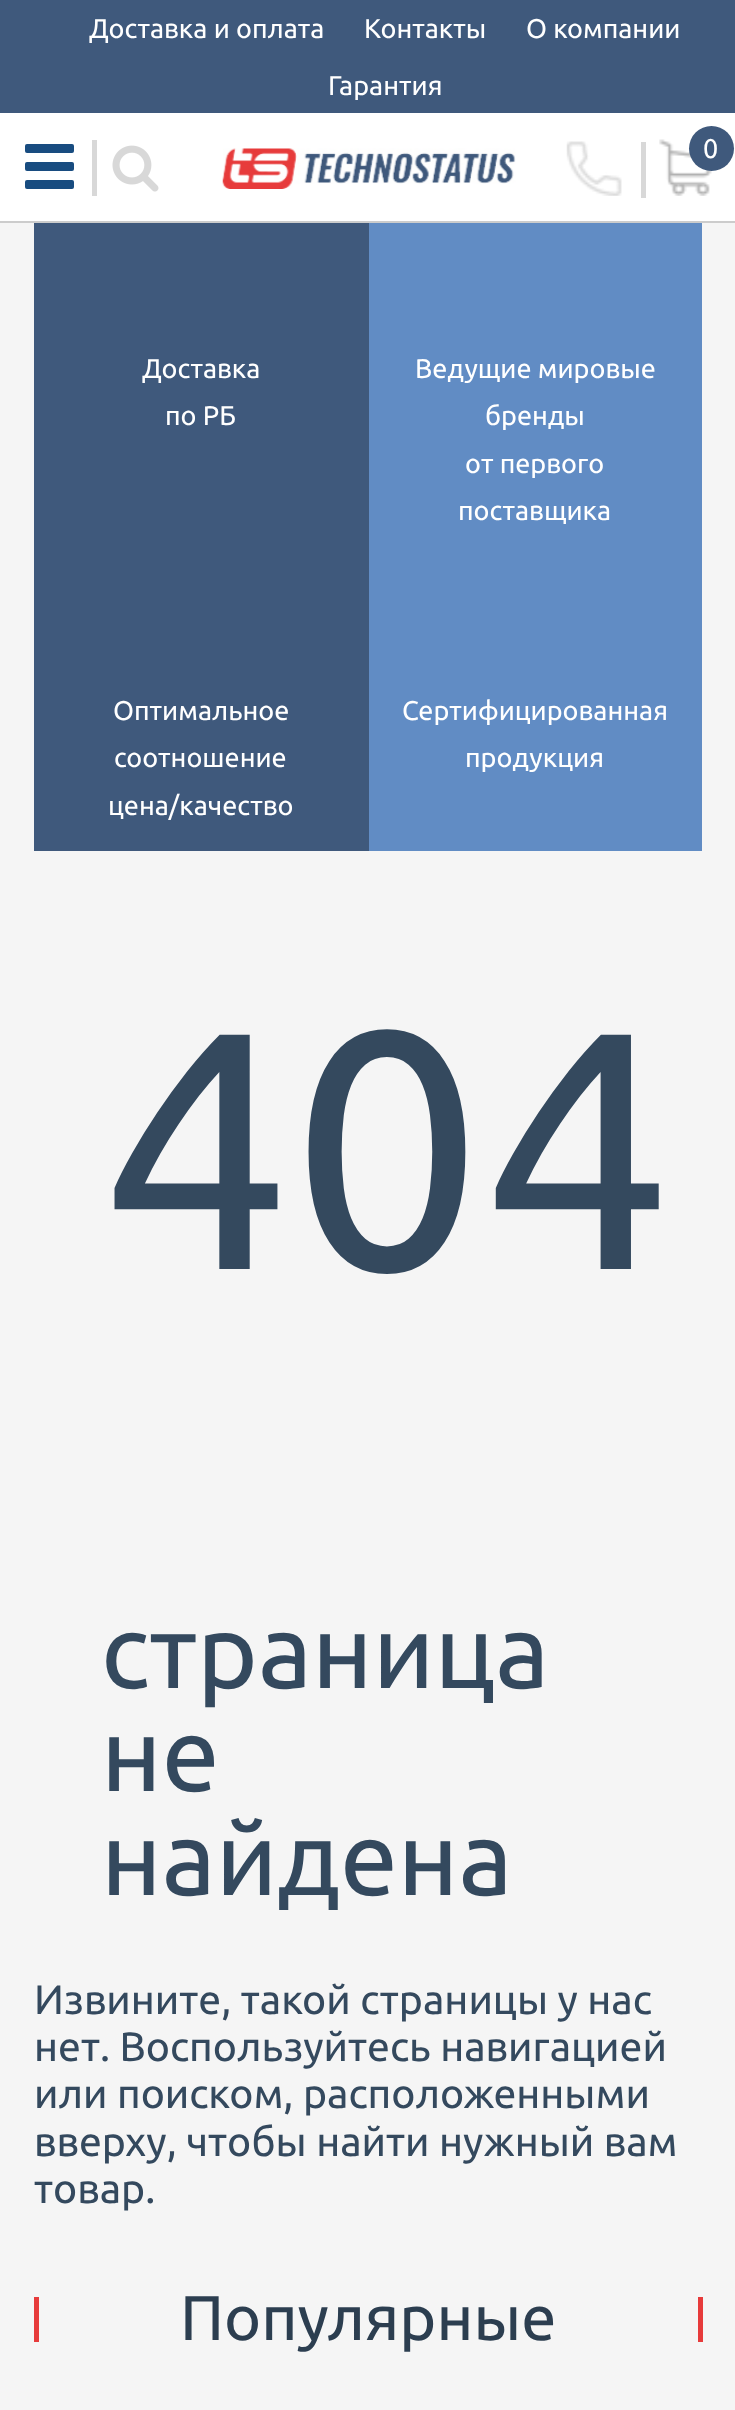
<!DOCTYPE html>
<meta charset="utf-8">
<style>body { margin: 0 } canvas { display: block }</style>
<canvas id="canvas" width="735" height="2410"></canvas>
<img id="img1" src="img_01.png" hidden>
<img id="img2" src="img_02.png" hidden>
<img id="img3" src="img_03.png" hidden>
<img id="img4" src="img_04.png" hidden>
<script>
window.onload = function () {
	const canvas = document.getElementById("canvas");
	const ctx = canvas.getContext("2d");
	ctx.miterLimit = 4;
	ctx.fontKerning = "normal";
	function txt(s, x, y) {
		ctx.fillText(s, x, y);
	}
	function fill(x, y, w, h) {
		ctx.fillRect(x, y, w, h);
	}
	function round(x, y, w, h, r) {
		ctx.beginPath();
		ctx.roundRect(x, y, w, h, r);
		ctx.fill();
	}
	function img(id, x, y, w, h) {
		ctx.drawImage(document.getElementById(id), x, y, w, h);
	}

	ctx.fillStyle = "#F5F5F5";
	fill(0, 0, 735, 2410);
	ctx.fillStyle = "#FFFFFF";
	fill(0, 113, 735, 108);
	ctx.fillStyle = "#CCCCCC";
	fill(0, 221, 735, 2);
	ctx.fillStyle = "#3F597C";
	fill(0, 0, 735, 113);
	ctx.fillStyle = "#184C80";
	round(25, 144, 49, 9, 2);
	ctx.fillStyle = "#D8D8D8";
	fill(92, 140, 5, 56);
	ctx.fillStyle = "#184C80";
	round(25, 162, 49, 9, 2);
	round(25, 180, 49, 9, 2);
	img("img1", 112, 145, 47, 47);
	img("img2", 222, 148, 294, 41);
	img("img3", 566, 141, 56, 55);
	img("img4", 659, 139, 53, 57);
	ctx.fillStyle = "#3F597C";
	ctx.beginPath();
	ctx.arc(711.5, 148.5, 22.5, 0, Math.PI * 2);
	ctx.fill();
	ctx.fillStyle = "#D8D8D8";
	fill(641, 142, 5, 56);
	ctx.fillStyle = "#3F597C";
	fill(34, 223, 335, 628);
	ctx.fillStyle = "#618CC4";
	fill(369, 223, 333, 628);
	ctx.fillStyle = "#E73B3B";
	fill(34, 2297, 5, 45);
	fill(698, 2297, 5, 45);
	ctx.font = "27px Ubuntu";
	ctx.fillStyle = "#FFFFFF";
	txt("Доставка и оплата", 89, 38);
	txt("Контакты", 364, 38);
	txt("О компании", 526, 38);
	txt("Гарантия", 328, 95);
	txt("0", 703, 158);
	txt("Доставка", 142, 378);
	txt("по РБ", 165, 425);
	txt("Ведущие мировые", 415, 378);
	txt("бренды", 485, 425);
	txt("от первого", 465, 473);
	txt("поставщика", 458, 520);
	txt("Оптимальное", 113, 720);
	txt("соотношение", 114, 767);
	txt("цена/качество", 108, 815);
	txt("Сертифицированная", 402, 720);
	txt("продукция", 465, 767);
	ctx.font = "338px Ubuntu";
	ctx.fillStyle = "#34495E";
	txt("404", 101, 1269);
	ctx.font = "103.5px Ubuntu";
	txt("cтраница", 101, 1688);
	txt("не", 101, 1791);
	txt("найдена", 101, 1895);
	ctx.font = "41px Ubuntu";
	txt("Извините, такой страницы у нас", 34, 2014);
	txt("нет. Воспользуйтесь навигацией", 34, 2061);
	txt("или поиском, расположенными", 34, 2108);
	txt("вверху, чтобы найти нужный вам", 34, 2156);
	txt("товар.", 34, 2203);
	ctx.font = "63px Ubuntu";
	ctx.fillStyle = "#2C3E50";
	txt("Популярные", 180, 2340);
};
</script>
